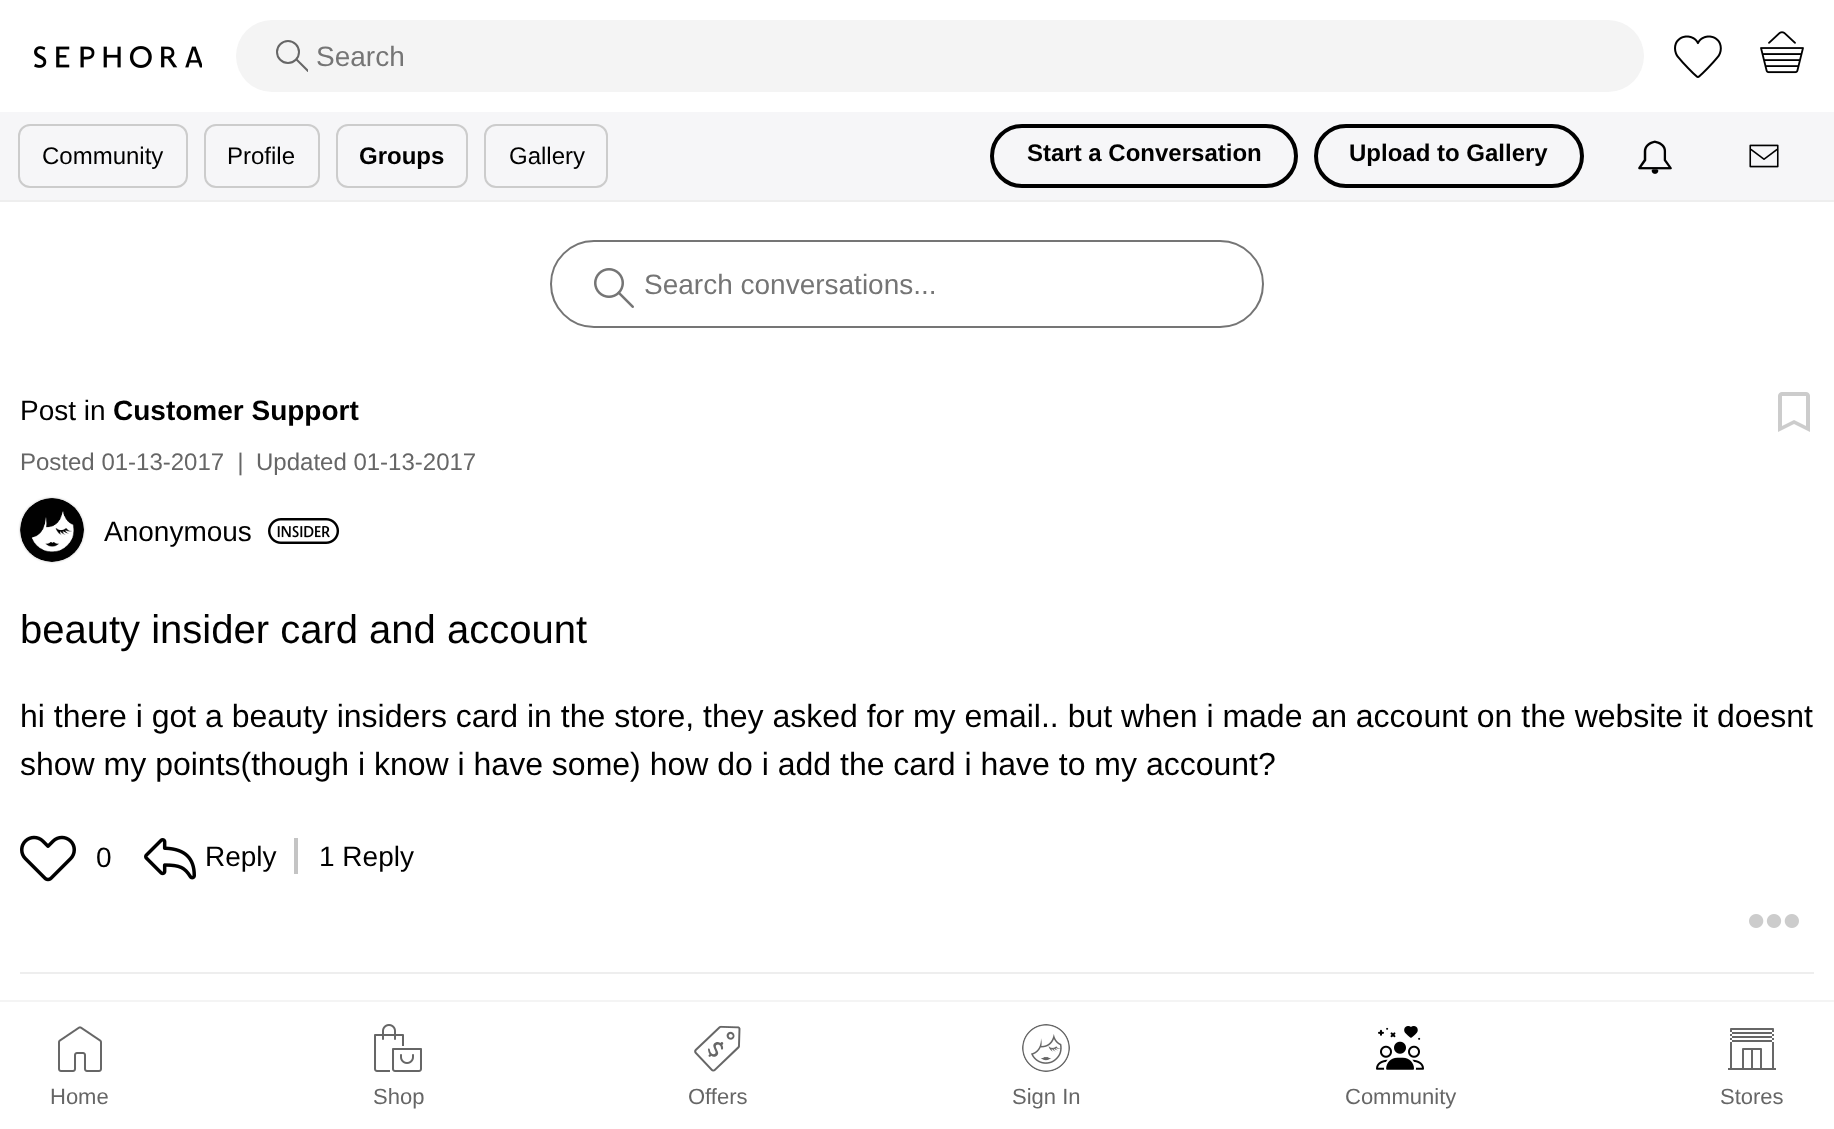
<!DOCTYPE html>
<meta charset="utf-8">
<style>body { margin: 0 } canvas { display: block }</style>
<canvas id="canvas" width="1834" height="1129"></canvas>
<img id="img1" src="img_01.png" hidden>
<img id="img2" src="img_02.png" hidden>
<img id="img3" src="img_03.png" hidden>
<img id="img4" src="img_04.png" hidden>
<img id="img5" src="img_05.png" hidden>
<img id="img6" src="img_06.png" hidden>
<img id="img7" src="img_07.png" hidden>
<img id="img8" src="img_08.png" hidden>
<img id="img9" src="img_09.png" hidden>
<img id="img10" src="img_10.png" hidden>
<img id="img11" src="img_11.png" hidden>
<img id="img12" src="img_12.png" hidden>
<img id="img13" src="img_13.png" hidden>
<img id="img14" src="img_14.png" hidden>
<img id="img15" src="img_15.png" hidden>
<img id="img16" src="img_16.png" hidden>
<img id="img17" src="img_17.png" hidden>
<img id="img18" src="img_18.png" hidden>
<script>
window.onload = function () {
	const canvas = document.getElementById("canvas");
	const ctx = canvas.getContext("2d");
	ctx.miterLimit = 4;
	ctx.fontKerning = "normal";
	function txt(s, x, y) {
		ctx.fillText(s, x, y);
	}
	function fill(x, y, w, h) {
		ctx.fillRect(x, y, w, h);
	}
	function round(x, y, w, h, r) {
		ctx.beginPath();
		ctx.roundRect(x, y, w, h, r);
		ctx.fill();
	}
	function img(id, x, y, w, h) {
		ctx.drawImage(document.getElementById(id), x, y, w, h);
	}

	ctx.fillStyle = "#FFFFFF";
	fill(0, 0, 1834, 1129);
	img("img1", 34, 46, 168, 22);
	ctx.fillStyle = "#F4F4F4";
	round(236, 20, 1408, 72, 36);
	ctx.beginPath();
	ctx.arc(288, 52, 11, 0, Math.PI * 2);
	ctx.strokeStyle = "#666666";
	ctx.lineWidth = 2;
	ctx.stroke();
	ctx.save();
	ctx.beginPath();
	ctx.rect(276, 40, 32, 32);
	ctx.clip();
	ctx.beginPath();
	ctx.moveTo(296.5, 59.5);
	ctx.lineTo(308.5, 71.5);
	ctx.stroke();
	ctx.restore();
	img("img2", 1674, 35, 48, 43);
	img("img3", 1760, 31, 44, 43);
	ctx.fillStyle = "#EEEEEE";
	fill(0, 200, 1834, 2);
	ctx.fillStyle = "#F6F6F8";
	fill(0, 112, 1834, 88);
	ctx.beginPath();
	ctx.roundRect(19, 125, 168, 62, 11);
	ctx.strokeStyle = "#CCCCCC";
	ctx.stroke();
	ctx.beginPath();
	ctx.roundRect(205, 125, 114, 62, 11);
	ctx.stroke();
	ctx.beginPath();
	ctx.roundRect(337, 125, 130, 62, 11);
	ctx.stroke();
	ctx.beginPath();
	ctx.roundRect(485, 125, 122, 62, 11);
	ctx.stroke();
	ctx.beginPath();
	ctx.roundRect(992, 126, 304, 60, 30);
	ctx.strokeStyle = "#000000";
	ctx.lineWidth = 4;
	ctx.stroke();
	ctx.beginPath();
	ctx.roundRect(1316, 126, 266, 60, 30);
	ctx.stroke();
	img("img4", 1638, 140, 34, 34);
	img("img5", 1749, 144, 30, 24);
	ctx.fillStyle = "#F4F4F4";
	fill(0, 1000, 1834, 2);
	img("img6", 58, 1026, 44, 46);
	img("img7", 374, 1024, 48, 48);
	img("img8", 694, 1025, 47, 47);
	img("img9", 1022, 1024, 48, 48);
	img("img10", 1376, 1026, 48, 44);
	img("img11", 1728, 1028, 48, 42);
	ctx.beginPath();
	ctx.roundRect(551, 241, 712, 86, 43);
	ctx.strokeStyle = "#757575";
	ctx.lineWidth = 2;
	ctx.stroke();
	img("img12", 594, 268, 40, 40);
	img("img13", 1778, 392, 32, 40);
	ctx.fillStyle = "#EEEEEE";
	fill(20, 972, 1794, 2);
	ctx.save();
	ctx.beginPath();
	ctx.moveTo(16, 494);
	ctx.lineTo(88, 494);
	ctx.lineTo(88, 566);
	ctx.lineTo(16, 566);
	ctx.closePath();
	ctx.moveTo(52, 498);
	ctx.bezierCurveTo(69.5, 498, 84, 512.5, 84, 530);
	ctx.bezierCurveTo(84, 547.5, 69.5, 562, 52, 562);
	ctx.bezierCurveTo(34.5, 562, 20, 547.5, 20, 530);
	ctx.bezierCurveTo(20, 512.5, 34.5, 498, 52, 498);
	ctx.closePath();
	ctx.clip("evenodd");
	ctx.fillStyle = "#C4C4C4";
	ctx.filter = "blur(1px)";
	ctx.beginPath();
	ctx.roundRect(20, 498, 64, 64, 32);
	ctx.fill();
	ctx.filter = "none";
	ctx.restore();
	img("img14", 20, 498, 64, 64);
	img("img15", 268, 518, 72, 26);
	img("img16", 20, 835, 56, 47);
	img("img17", 144, 838, 52, 42);
	ctx.fillStyle = "#C4C4C4";
	fill(294, 838, 4, 36);
	img("img18", 1749, 914, 50, 14);
	ctx.font = "28px Liberation Sans";
	ctx.fillStyle = "#757575";
	txt("Search", 316, 66);
	ctx.font = "24px Liberation Sans";
	ctx.fillStyle = "#000000";
	txt("Community", 42, 164);
	txt("Profile", 227, 164);
	ctx.font = "bold 24px Liberation Sans";
	txt("Groups", 359, 164);
	ctx.font = "24px Liberation Sans";
	txt("Gallery", 509, 164);
	ctx.font = "bold 24px Liberation Sans";
	txt("Start a Conversation", 1027, 161);
	txt("Upload to Gallery", 1349, 161);
	ctx.font = "22px Liberation Sans";
	ctx.fillStyle = "#666666";
	txt("Home", 50, 1104);
	txt("Shop", 373, 1104);
	txt("Offers", 688, 1104);
	txt("Sign In", 1012, 1104);
	txt("Community", 1345, 1104);
	txt("Stores", 1720, 1104);
	ctx.font = "28px Liberation Sans";
	ctx.fillStyle = "#757575";
	txt("Search conversations...", 644, 294);
	ctx.fillStyle = "#000000";
	txt("Post in", 20, 420);
	ctx.font = "bold 28px Liberation Sans";
	txt("Customer Support", 113, 420);
	ctx.font = "24px Liberation Sans";
	ctx.fillStyle = "#666666";
	txt("Posted 01-13-2017", 20, 470);
	ctx.font = "italic 24px Liberation Sans";
	txt("|", 237, 470);
	ctx.font = "24px Liberation Sans";
	txt("Updated 01-13-2017", 256, 470);
	ctx.font = "28px Liberation Sans";
	ctx.fillStyle = "#000000";
	txt("Anonymous", 104, 541);
	ctx.font = "40px Liberation Sans";
	txt("beauty insider card and account", 20, 643);
	ctx.font = "32px Liberation Sans";
	txt("hi there i got a beauty insiders card in the store, they asked for my email.. but when i made an account on the website it doesnt", 20, 727);
	txt("show my points(though i know i have some) how do i add the card i have to my account?", 20, 775);
	ctx.font = "28px Liberation Sans";
	txt("0", 96, 867);
	txt("Reply", 205, 866);
	txt("1 Reply", 319, 866);
};
</script>
